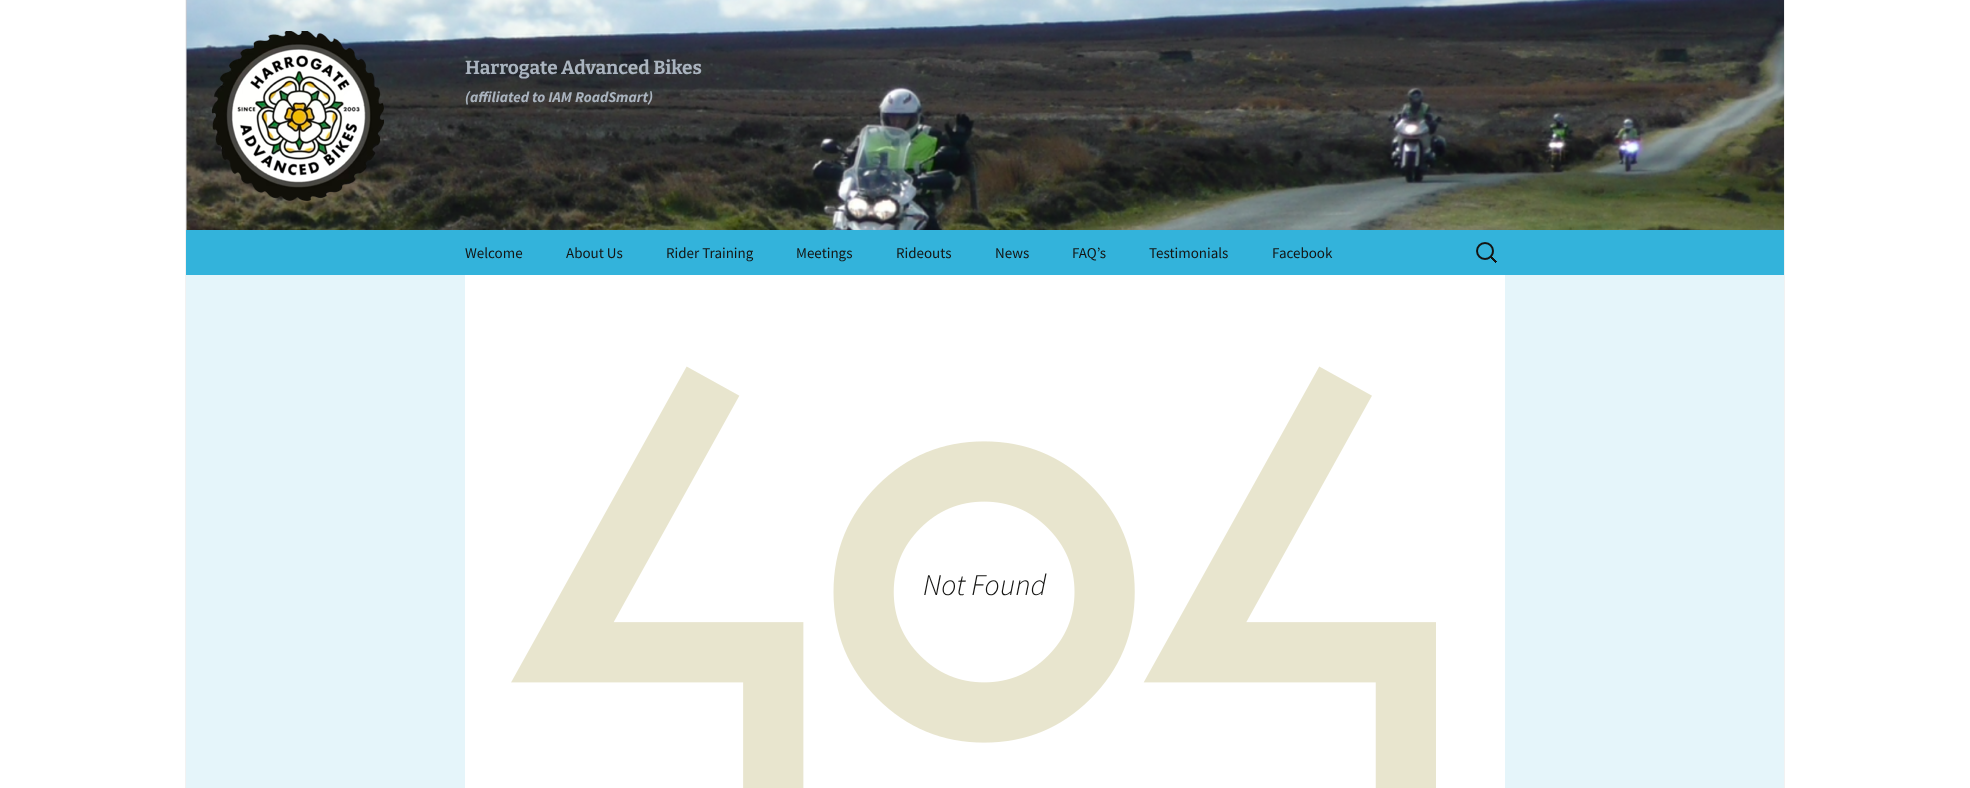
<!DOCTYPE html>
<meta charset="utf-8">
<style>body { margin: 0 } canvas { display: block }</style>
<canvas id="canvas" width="1970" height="788"></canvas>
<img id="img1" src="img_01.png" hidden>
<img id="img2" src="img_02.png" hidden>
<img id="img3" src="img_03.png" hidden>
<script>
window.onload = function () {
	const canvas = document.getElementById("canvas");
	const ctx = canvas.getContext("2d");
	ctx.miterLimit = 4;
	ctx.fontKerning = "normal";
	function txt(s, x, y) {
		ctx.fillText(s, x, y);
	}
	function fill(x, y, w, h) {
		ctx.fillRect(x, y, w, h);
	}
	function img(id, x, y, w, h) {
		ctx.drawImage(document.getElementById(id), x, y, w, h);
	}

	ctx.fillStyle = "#FFFFFF";
	fill(0, 0, 1970, 788);
	ctx.fillStyle = "#F2F2F2";
	fill(1784, 0, 1, 788);
	fill(185, 0, 1, 788);
	img("img1", 186, 0, 1598, 230);
	ctx.fillStyle = "#33B3DB";
	fill(186, 230, 1598, 45);
	img("img2", 1476, 242, 21, 21);
	ctx.fillStyle = "#E5F5FA";
	fill(186, 275, 1598, 513);
	ctx.fillStyle = "#FFFFFF";
	fill(465, 275, 1040, 513);
	ctx.font = "100 19px Bitter";
	ctx.fillStyle = "#AAB4BF";
	txt("Harrogate Advanced Bikes", 465, 74);
	ctx.font = "italic bold 15px Source Sans Pro";
	txt("(affiliated to IAM RoadSmart)", 465, 102);
	ctx.font = "15px Source Sans Pro";
	ctx.fillStyle = "#141412";
	txt("Welcome", 465, 258);
	txt("About Us", 566, 258);
	txt("Rider Training", 666, 258);
	txt("Meetings", 796, 258);
	txt("Rideouts", 896, 258);
	txt("News", 995, 258);
	txt("FAQ’s", 1072, 258);
	txt("Testimonials", 1149, 258);
	txt("Facebook", 1272, 258);
	ctx.font = "italic 300 30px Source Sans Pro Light";
	txt("Not Found", 923, 595);
	img("img3", 511, 366, 925, 422);
};
</script>
